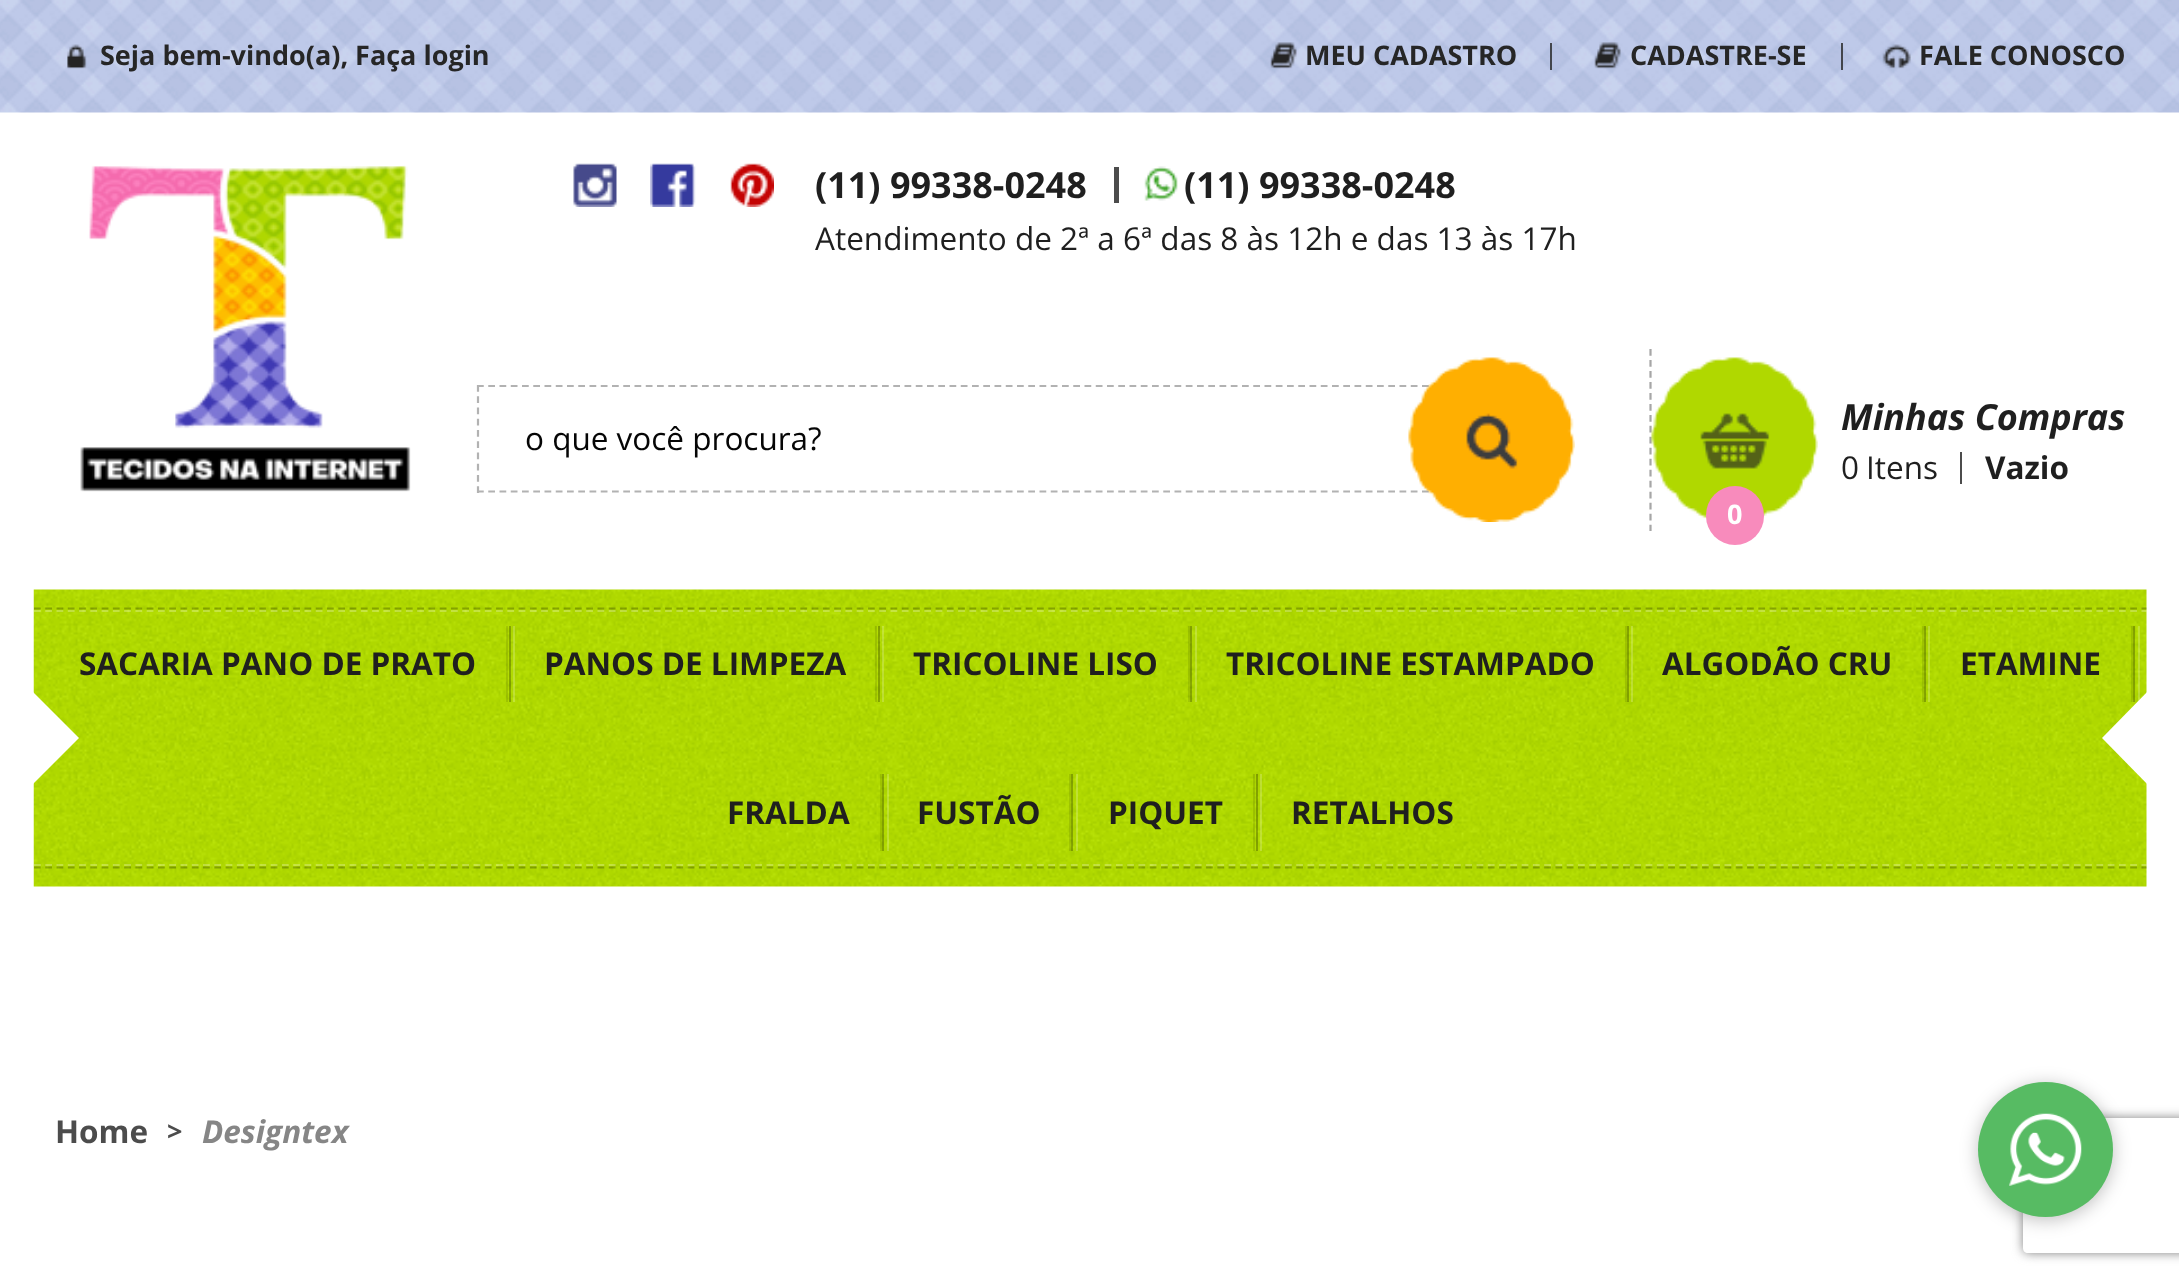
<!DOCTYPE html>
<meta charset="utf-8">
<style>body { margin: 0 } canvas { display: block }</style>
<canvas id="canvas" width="2179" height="1283"></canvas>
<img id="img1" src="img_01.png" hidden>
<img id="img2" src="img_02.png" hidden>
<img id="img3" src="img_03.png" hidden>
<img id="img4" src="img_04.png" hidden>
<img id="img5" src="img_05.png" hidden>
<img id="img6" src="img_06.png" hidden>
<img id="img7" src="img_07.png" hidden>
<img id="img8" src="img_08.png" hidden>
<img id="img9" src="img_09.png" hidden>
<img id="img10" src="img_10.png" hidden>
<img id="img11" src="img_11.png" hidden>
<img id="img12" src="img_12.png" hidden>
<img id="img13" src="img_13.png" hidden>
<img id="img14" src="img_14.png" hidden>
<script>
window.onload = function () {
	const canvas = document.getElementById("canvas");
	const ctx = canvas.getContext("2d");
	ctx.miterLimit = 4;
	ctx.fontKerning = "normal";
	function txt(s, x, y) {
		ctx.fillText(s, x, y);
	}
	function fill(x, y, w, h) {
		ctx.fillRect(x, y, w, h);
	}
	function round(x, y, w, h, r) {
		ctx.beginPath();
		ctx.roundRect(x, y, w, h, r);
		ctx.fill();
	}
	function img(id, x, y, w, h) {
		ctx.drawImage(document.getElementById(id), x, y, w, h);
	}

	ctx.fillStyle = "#FFFFFF";
	fill(0, 0, 2179, 1283);
	img("img1", 0, 0, 2179, 113);
	img("img2", 67, 44, 20, 25);
	img("img3", 1270, 42, 27, 27);
	ctx.fillStyle = "rgba(38, 38, 38, 0.8)";
	fill(1550, 43, 2, 27);
	img("img4", 1594, 42, 27, 27);
	fill(1841, 43, 2, 27);
	img("img5", 1882, 44, 29, 25);
	img("img6", 80, 165, 331, 327);
	img("img7", 573, 163, 44, 44);
	img("img8", 650, 163, 46, 44);
	img("img9", 730, 163, 44, 44);
	ctx.fillStyle = "#4C4C4C";
	fill(1114, 167, 5, 36);
	img("img10", 1144, 166, 34, 35);
	ctx.beginPath();
	ctx.moveTo(477, 386);
	ctx.lineTo(1485, 386);
	ctx.strokeStyle = "#B2B2B2";
	ctx.lineWidth = 2.2;
	ctx.setLineDash([6.75, 4.5]);
	ctx.stroke();
	ctx.beginPath();
	ctx.moveTo(477, 491.5);
	ctx.lineTo(1485, 491.5);
	ctx.stroke();
	ctx.beginPath();
	ctx.moveTo(478, 385);
	ctx.lineTo(478, 493);
	ctx.stroke();
	img("img11", 1408, 357, 167, 165);
	ctx.beginPath();
	ctx.moveTo(1650.5, 349);
	ctx.lineTo(1650.5, 531);
	ctx.strokeStyle = "#A6A6A6";
	ctx.setLineDash([6.75, 4.23]);
	ctx.stroke();
	img("img12", 1651, 357, 167, 162);
	fill(1960, 452, 2, 32);
	ctx.fillStyle = "#F88BBC";
	round(1706, 486, 58, 59, 29);
	img("img13", 33, 589, 2114, 298);
	ctx.fillStyle = "#FFFFFF";
	ctx.beginPath();
	ctx.moveTo(29, 788);
	ctx.lineTo(29, 688);
	ctx.lineTo(79, 738);
	ctx.closePath();
	ctx.fill();
	ctx.beginPath();
	ctx.moveTo(34, 608.5);
	ctx.lineTo(2146.5, 608.5);
	ctx.strokeStyle = "rgba(0, 0, 0, 0.25)";
	ctx.setLineDash([6.75, 4.52]);
	ctx.stroke();
	ctx.beginPath();
	ctx.moveTo(34, 867.5);
	ctx.lineTo(2146.5, 867.5);
	ctx.stroke();
	ctx.beginPath();
	ctx.moveTo(34, 611);
	ctx.lineTo(2146.5, 611);
	ctx.strokeStyle = "rgba(255, 255, 255, 0.25)";
	ctx.stroke();
	ctx.beginPath();
	ctx.moveTo(34, 865);
	ctx.lineTo(2146.5, 865);
	ctx.stroke();
	ctx.fillStyle = "rgba(0, 0, 0, 0.1)";
	fill(506, 626, 2, 76);
	ctx.fillStyle = "rgba(255, 255, 255, 0.2)";
	fill(513, 626, 2, 76);
	ctx.fillStyle = "rgba(0, 0, 0, 0.25)";
	fill(509, 626, 2, 76);
	ctx.fillStyle = "rgba(0, 0, 0, 0.1)";
	fill(875, 626, 2, 76);
	ctx.fillStyle = "rgba(255, 255, 255, 0.2)";
	fill(882, 626, 2, 76);
	ctx.fillStyle = "rgba(0, 0, 0, 0.25)";
	fill(878, 626, 2, 76);
	ctx.fillStyle = "rgba(0, 0, 0, 0.1)";
	fill(1188, 626, 2, 76);
	ctx.fillStyle = "rgba(255, 255, 255, 0.2)";
	fill(1195, 626, 2, 76);
	ctx.fillStyle = "rgba(0, 0, 0, 0.25)";
	fill(1190, 626, 2, 76);
	ctx.fillStyle = "rgba(0, 0, 0, 0.1)";
	fill(1625, 626, 2, 76);
	ctx.fillStyle = "rgba(255, 255, 255, 0.2)";
	fill(1631, 626, 2, 76);
	ctx.fillStyle = "rgba(0, 0, 0, 0.25)";
	fill(1627, 626, 2, 76);
	ctx.fillStyle = "rgba(0, 0, 0, 0.1)";
	fill(1922, 626, 2, 76);
	ctx.fillStyle = "rgba(255, 255, 255, 0.2)";
	fill(1928, 626, 2, 76);
	ctx.fillStyle = "rgba(0, 0, 0, 0.25)";
	fill(1924, 626, 2, 76);
	ctx.fillStyle = "#FFFFFF";
	ctx.beginPath();
	ctx.moveTo(2151, 688);
	ctx.lineTo(2151, 788);
	ctx.lineTo(2102, 738);
	ctx.closePath();
	ctx.fill();
	ctx.fillStyle = "rgba(0, 0, 0, 0.1)";
	fill(2131, 626, 2, 76);
	ctx.fillStyle = "rgba(255, 255, 255, 0.2)";
	fill(2138, 626, 2, 76);
	ctx.fillStyle = "rgba(0, 0, 0, 0.25)";
	fill(2133, 626, 2, 76);
	ctx.fillStyle = "rgba(0, 0, 0, 0.1)";
	fill(880, 774, 2, 77);
	ctx.fillStyle = "rgba(255, 255, 255, 0.2)";
	fill(887, 774, 2, 77);
	ctx.fillStyle = "rgba(0, 0, 0, 0.25)";
	fill(882, 774, 2, 77);
	ctx.fillStyle = "rgba(0, 0, 0, 0.1)";
	fill(1069, 774, 2, 77);
	ctx.fillStyle = "rgba(255, 255, 255, 0.2)";
	fill(1076, 774, 2, 77);
	ctx.fillStyle = "rgba(0, 0, 0, 0.25)";
	fill(1071, 774, 2, 77);
	ctx.fillStyle = "rgba(0, 0, 0, 0.1)";
	fill(1253, 774, 2, 77);
	ctx.fillStyle = "rgba(255, 255, 255, 0.2)";
	fill(1260, 774, 2, 77);
	ctx.fillStyle = "rgba(0, 0, 0, 0.25)";
	fill(1256, 774, 2, 77);
	ctx.filter = "blur(9px)";
	ctx.beginPath();
	ctx.roundRect(1978, 1085, 135, 135, 67.5);
	ctx.fill();
	ctx.filter = "none";
	ctx.save();
	ctx.beginPath();
	ctx.moveTo(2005, 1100);
	ctx.lineTo(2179, 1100);
	ctx.lineTo(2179, 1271);
	ctx.lineTo(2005, 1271);
	ctx.closePath();
	ctx.moveTo(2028, 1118);
	ctx.lineTo(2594, 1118);
	ctx.bezierCurveTo(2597, 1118, 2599, 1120, 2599, 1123);
	ctx.lineTo(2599, 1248);
	ctx.bezierCurveTo(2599, 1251, 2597, 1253, 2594, 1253);
	ctx.lineTo(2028, 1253);
	ctx.bezierCurveTo(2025, 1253, 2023, 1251, 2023, 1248);
	ctx.lineTo(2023, 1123);
	ctx.bezierCurveTo(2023, 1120, 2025, 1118, 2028, 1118);
	ctx.closePath();
	ctx.clip("evenodd");
	ctx.fillStyle = "#808080";
	ctx.filter = "blur(5.5px)";
	ctx.beginPath();
	ctx.roundRect(2023, 1118, 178, 135, 5);
	ctx.fill();
	ctx.filter = "none";
	ctx.restore();
	ctx.fillStyle = "#57BB63";
	ctx.beginPath();
	ctx.arc(2045.5, 1149.5, 67.5, 0, Math.PI * 2);
	ctx.fill();
	img("img14", 2009, 1113, 73, 73);
	ctx.font = "bold 27px Open Sans";
	ctx.fillStyle = "#262626";
	txt("Seja bem-vindo(a), Faça login", 100, 65);
	txt("MEU CADASTRO", 1305, 65);
	txt("CADASTRE-SE", 1630, 65);
	txt("FALE CONOSCO", 1919, 65);
	ctx.font = "bold 36px Open Sans";
	ctx.fillStyle = "#1F1F1F";
	txt("(11) 99338-0248", 815, 198);
	txt("(11) 99338-0248", 1184, 198);
	ctx.font = "31.5px Open Sans";
	txt("Atendimento de 2ª a 6ª das 8 às 12h e das 13 às 17h", 815, 250);
	ctx.fillStyle = "#050505";
	txt("o que você procura?", 525, 450);
	ctx.font = "italic bold 36px Open Sans";
	ctx.fillStyle = "#1F1F1F";
	txt("Minhas Compras", 1841, 430);
	ctx.font = "31.5px Open Sans";
	txt("0", 1841, 479);
	txt("Itens", 1866, 479);
	ctx.font = "bold 31.5px Open Sans";
	txt("Vazio", 1985, 479);
	ctx.font = "bold 27px Open Sans";
	ctx.fillStyle = "#FFFFFF";
	txt("0", 1727, 524);
	ctx.font = "bold 31.5px Open Sans";
	ctx.fillStyle = "#1F1F1F";
	txt("SACARIA PANO DE PRATO", 79, 675);
	txt("PANOS DE LIMPEZA", 544, 675);
	txt("TRICOLINE LISO", 913, 675);
	txt("TRICOLINE ESTAMPADO", 1226, 675);
	txt("ALGODÃO CRU", 1662, 675);
	txt("ETAMINE", 1960, 675);
	txt("FRALDA", 727, 824);
	txt("FUSTÃO", 917, 824);
	txt("PIQUET", 1108, 824);
	txt("RETALHOS", 1291, 824);
	ctx.fillStyle = "#4C4C4C";
	txt("Home", 55, 1143);
	ctx.font = "bold 27px Open Sans";
	txt(">", 167, 1141);
	ctx.font = "italic bold 31.5px Open Sans";
	ctx.fillStyle = "#868686";
	txt("Designtex", 202, 1143);
};
</script>
